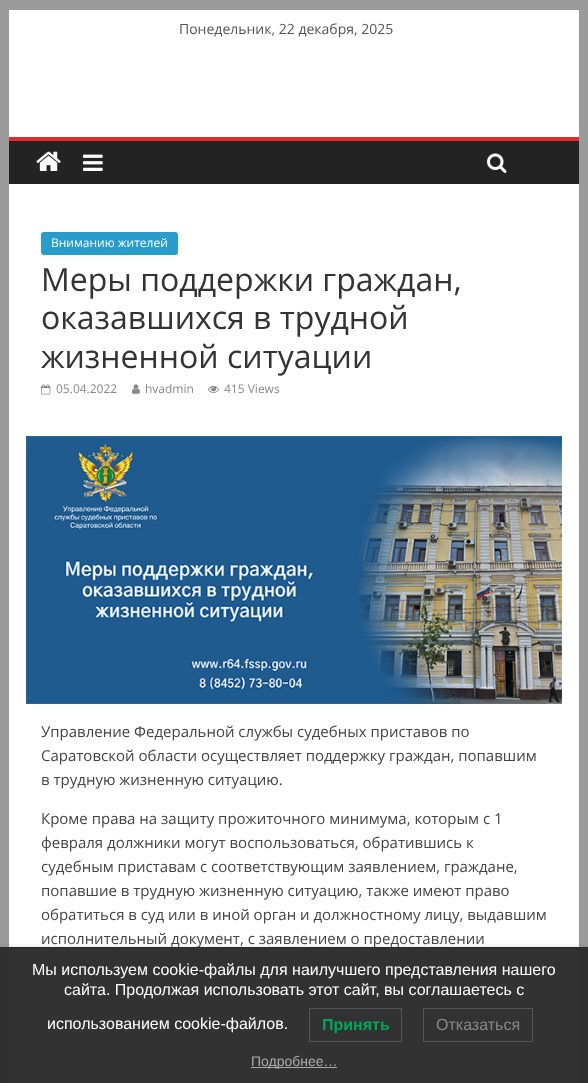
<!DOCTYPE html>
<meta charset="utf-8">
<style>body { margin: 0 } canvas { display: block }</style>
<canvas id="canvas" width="588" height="1083"></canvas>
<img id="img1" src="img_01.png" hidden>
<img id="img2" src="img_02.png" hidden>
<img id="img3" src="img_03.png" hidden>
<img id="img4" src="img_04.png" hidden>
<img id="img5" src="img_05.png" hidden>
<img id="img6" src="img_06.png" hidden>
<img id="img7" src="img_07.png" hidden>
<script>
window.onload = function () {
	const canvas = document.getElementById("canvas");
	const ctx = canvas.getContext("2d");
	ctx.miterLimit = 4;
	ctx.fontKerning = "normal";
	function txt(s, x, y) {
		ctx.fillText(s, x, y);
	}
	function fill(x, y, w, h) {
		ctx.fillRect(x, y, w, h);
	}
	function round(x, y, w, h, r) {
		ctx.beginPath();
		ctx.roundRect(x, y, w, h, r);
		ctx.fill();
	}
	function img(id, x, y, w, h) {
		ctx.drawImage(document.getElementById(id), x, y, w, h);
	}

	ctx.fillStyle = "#9B9B9B";
	fill(0, 0, 588, 1083);
	ctx.fillStyle = "#FFFFFF";
	fill(9, 10, 570, 127);
	ctx.fillStyle = "#232323";
	fill(9, 141, 570, 43);
	ctx.fillStyle = "#E02C2C";
	fill(9, 137, 570, 4);
	img("img1", 36, 151, 25, 20);
	img("img2", 83, 154, 20, 17);
	img("img3", 487, 153, 20, 20);
	ctx.fillStyle = "#FFFFFF";
	fill(9, 184, 570, 899);
	ctx.fillStyle = "#289DCC";
	round(41, 232, 137, 23, 3);
	img("img4", 41, 384, 10, 11);
	img("img5", 132, 384, 8, 10);
	img("img6", 208, 385, 11, 8);
	img("img7", 26, 436, 536, 268);
	ctx.save();
	ctx.beginPath();
	ctx.rect(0, 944, 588, 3);
	ctx.clip();
	ctx.fillStyle = "rgba(0, 0, 0, 0.1)";
	ctx.filter = "blur(4px)";
	ctx.beginPath();
	ctx.rect(0, 947, 588, 136);
	ctx.fill();
	ctx.filter = "none";
	ctx.restore();
	ctx.fillStyle = "rgba(43, 43, 43, 0.97)";
	fill(0, 948, 588, 135);
	ctx.strokeStyle = "#555555";
	ctx.strokeRect(309.5, 1008.5, 92, 33);
	ctx.strokeRect(423.5, 1008.5, 109, 33);
	ctx.fillStyle = "#AAAAAA";
	fill(251, 1067, 86, 1);
	ctx.font = "14px Open Sans";
	ctx.fillStyle = "#555555";
	txt("Понедельник, 22 декабря, 2025", 179, 34);
	ctx.font = "12px Open Sans";
	ctx.fillStyle = "#FFFFFF";
	txt("Вниманию жителей", 51, 247);
	ctx.font = "32px Open Sans";
	ctx.fillStyle = "#333333";
	txt("Меры поддержки граждан,", 41, 291);
	txt("оказавшихся в трудной", 41, 329);
	txt("жизненной ситуации", 41, 368);
	ctx.font = "12px Open Sans";
	ctx.fillStyle = "#888888";
	txt("05.04.2022", 56, 393);
	txt("hvadmin", 145, 393);
	txt("415 Views", 224, 393);
	ctx.font = "15px Open Sans";
	ctx.fillStyle = "#444444";
	txt("Управление Федеральной службы судебных приставов по", 41, 737);
	txt("Саратовской области осуществляет поддержку граждан, попавшим", 41, 761);
	txt("в трудную жизненную ситуацию.", 41, 785);
	txt("Кроме права на защиту прожиточного минимума, которым с 1", 41, 824);
	txt("февраля должники могут воспользоваться, обратившись к", 41, 848);
	txt("судебным приставам с соответствующим заявлением, граждане,", 41, 872);
	txt("попавшие в трудную жизненную ситуацию, также имеют право", 41, 896);
	txt("обратиться в суд или в иной орган и должностному лицу, выдавшим", 41, 920);
	txt("исполнительный документ, с заявлением о предоставлении", 41, 944);
	ctx.fillStyle = "#2B2B2B";
	fill(0, 947, 588, 1);
	ctx.font = "16px Liberation Sans";
	ctx.fillStyle = "#FFFFFF";
	txt("Мы используем cookie-файлы для наилучшего представления нашего", 32, 975);
	txt("сайта. Продолжая использовать этот сайт, вы соглашаетесь с", 64, 995);
	txt("использованием cookie-файлов.", 47, 1029);
	ctx.font = "bold 16px Liberation Sans";
	ctx.fillStyle = "#00A65A";
	txt("Принять", 322, 1030);
	ctx.font = "16px Liberation Sans";
	ctx.fillStyle = "#888888";
	txt("Отказаться", 436, 1030);
	ctx.font = "14px Liberation Sans";
	ctx.fillStyle = "#AAAAAA";
	txt("Подробнее…", 251, 1066);
};
</script>
